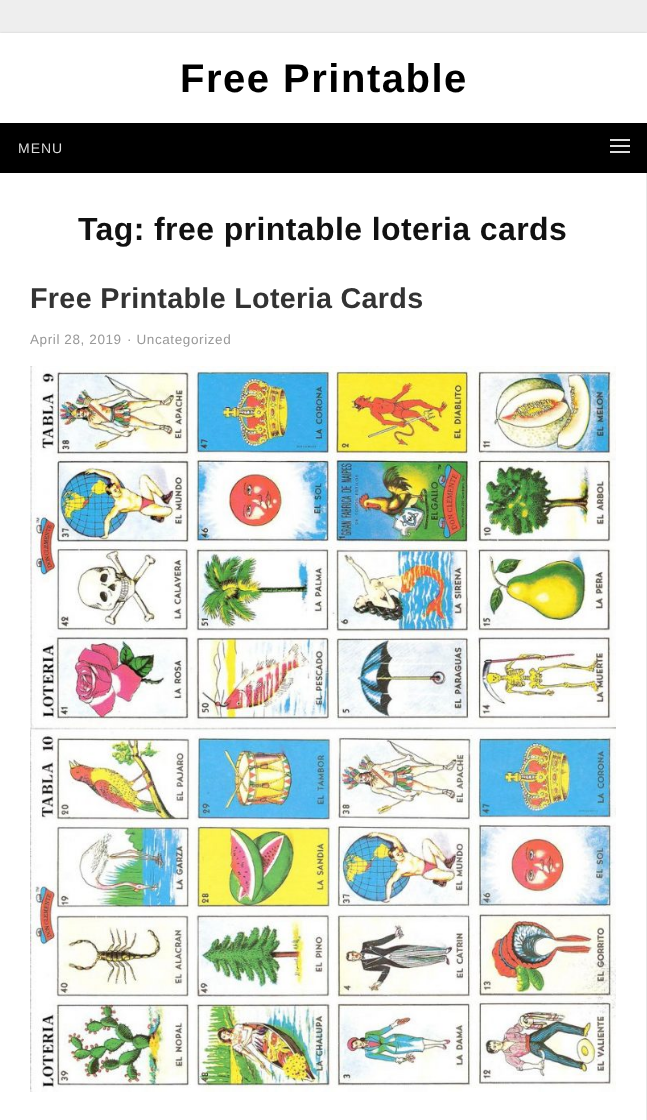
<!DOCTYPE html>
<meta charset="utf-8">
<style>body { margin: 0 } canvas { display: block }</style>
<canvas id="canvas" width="647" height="1120"></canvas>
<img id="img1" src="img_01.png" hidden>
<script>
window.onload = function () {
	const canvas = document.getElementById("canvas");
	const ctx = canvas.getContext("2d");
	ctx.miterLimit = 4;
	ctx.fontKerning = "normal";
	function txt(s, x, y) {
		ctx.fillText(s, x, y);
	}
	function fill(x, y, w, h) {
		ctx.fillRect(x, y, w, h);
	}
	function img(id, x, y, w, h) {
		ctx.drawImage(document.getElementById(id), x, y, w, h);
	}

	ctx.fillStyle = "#EEEEEE";
	fill(0, 0, 647, 1120);
	ctx.fillStyle = "rgba(0, 0, 0, 0.3)";
	ctx.filter = "blur(1.5px)";
	ctx.beginPath();
	ctx.rect(0, 34, 647, 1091);
	ctx.fill();
	ctx.filter = "none";
	ctx.fillStyle = "#FFFFFF";
	fill(0, 33, 647, 1087);
	ctx.fillStyle = "#000000";
	fill(0, 123, 647, 50);
	ctx.fillStyle = "#DDDDDD";
	fill(610, 139, 20, 2);
	fill(610, 145, 20, 2);
	fill(610, 151, 20, 2);
	ctx.fillStyle = "#E8E8E8";
	fill(646, 173, 1, 947);
	img("img1", 30, 366, 586, 726);
	ctx.letterSpacing = "1.5px";
	ctx.font = "bold 40px Liberation Sans";
	ctx.fillStyle = "#000000";
	txt("Free Printable", 180, 92);
	ctx.letterSpacing = "1px";
	ctx.font = "14px Liberation Sans";
	ctx.fillStyle = "#DDDDDD";
	txt("MENU", 18, 153);
	ctx.letterSpacing = "0.4px";
	ctx.font = "bold 32px Liberation Sans";
	ctx.fillStyle = "#111111";
	txt("Tag: free printable loteria cards", 78, 240);
	ctx.letterSpacing = "0.3px";
	ctx.font = "bold 28.75px Liberation Sans";
	ctx.fillStyle = "#333333";
	txt("Free Printable Loteria Cards", 30, 308);
	ctx.letterSpacing = "0.6px";
	ctx.font = "13.5px Liberation Sans";
	ctx.fillStyle = "#999999";
	txt("April 28, 2019", 30, 344);
	txt("· Uncategorized", 127, 344);
};
</script>
